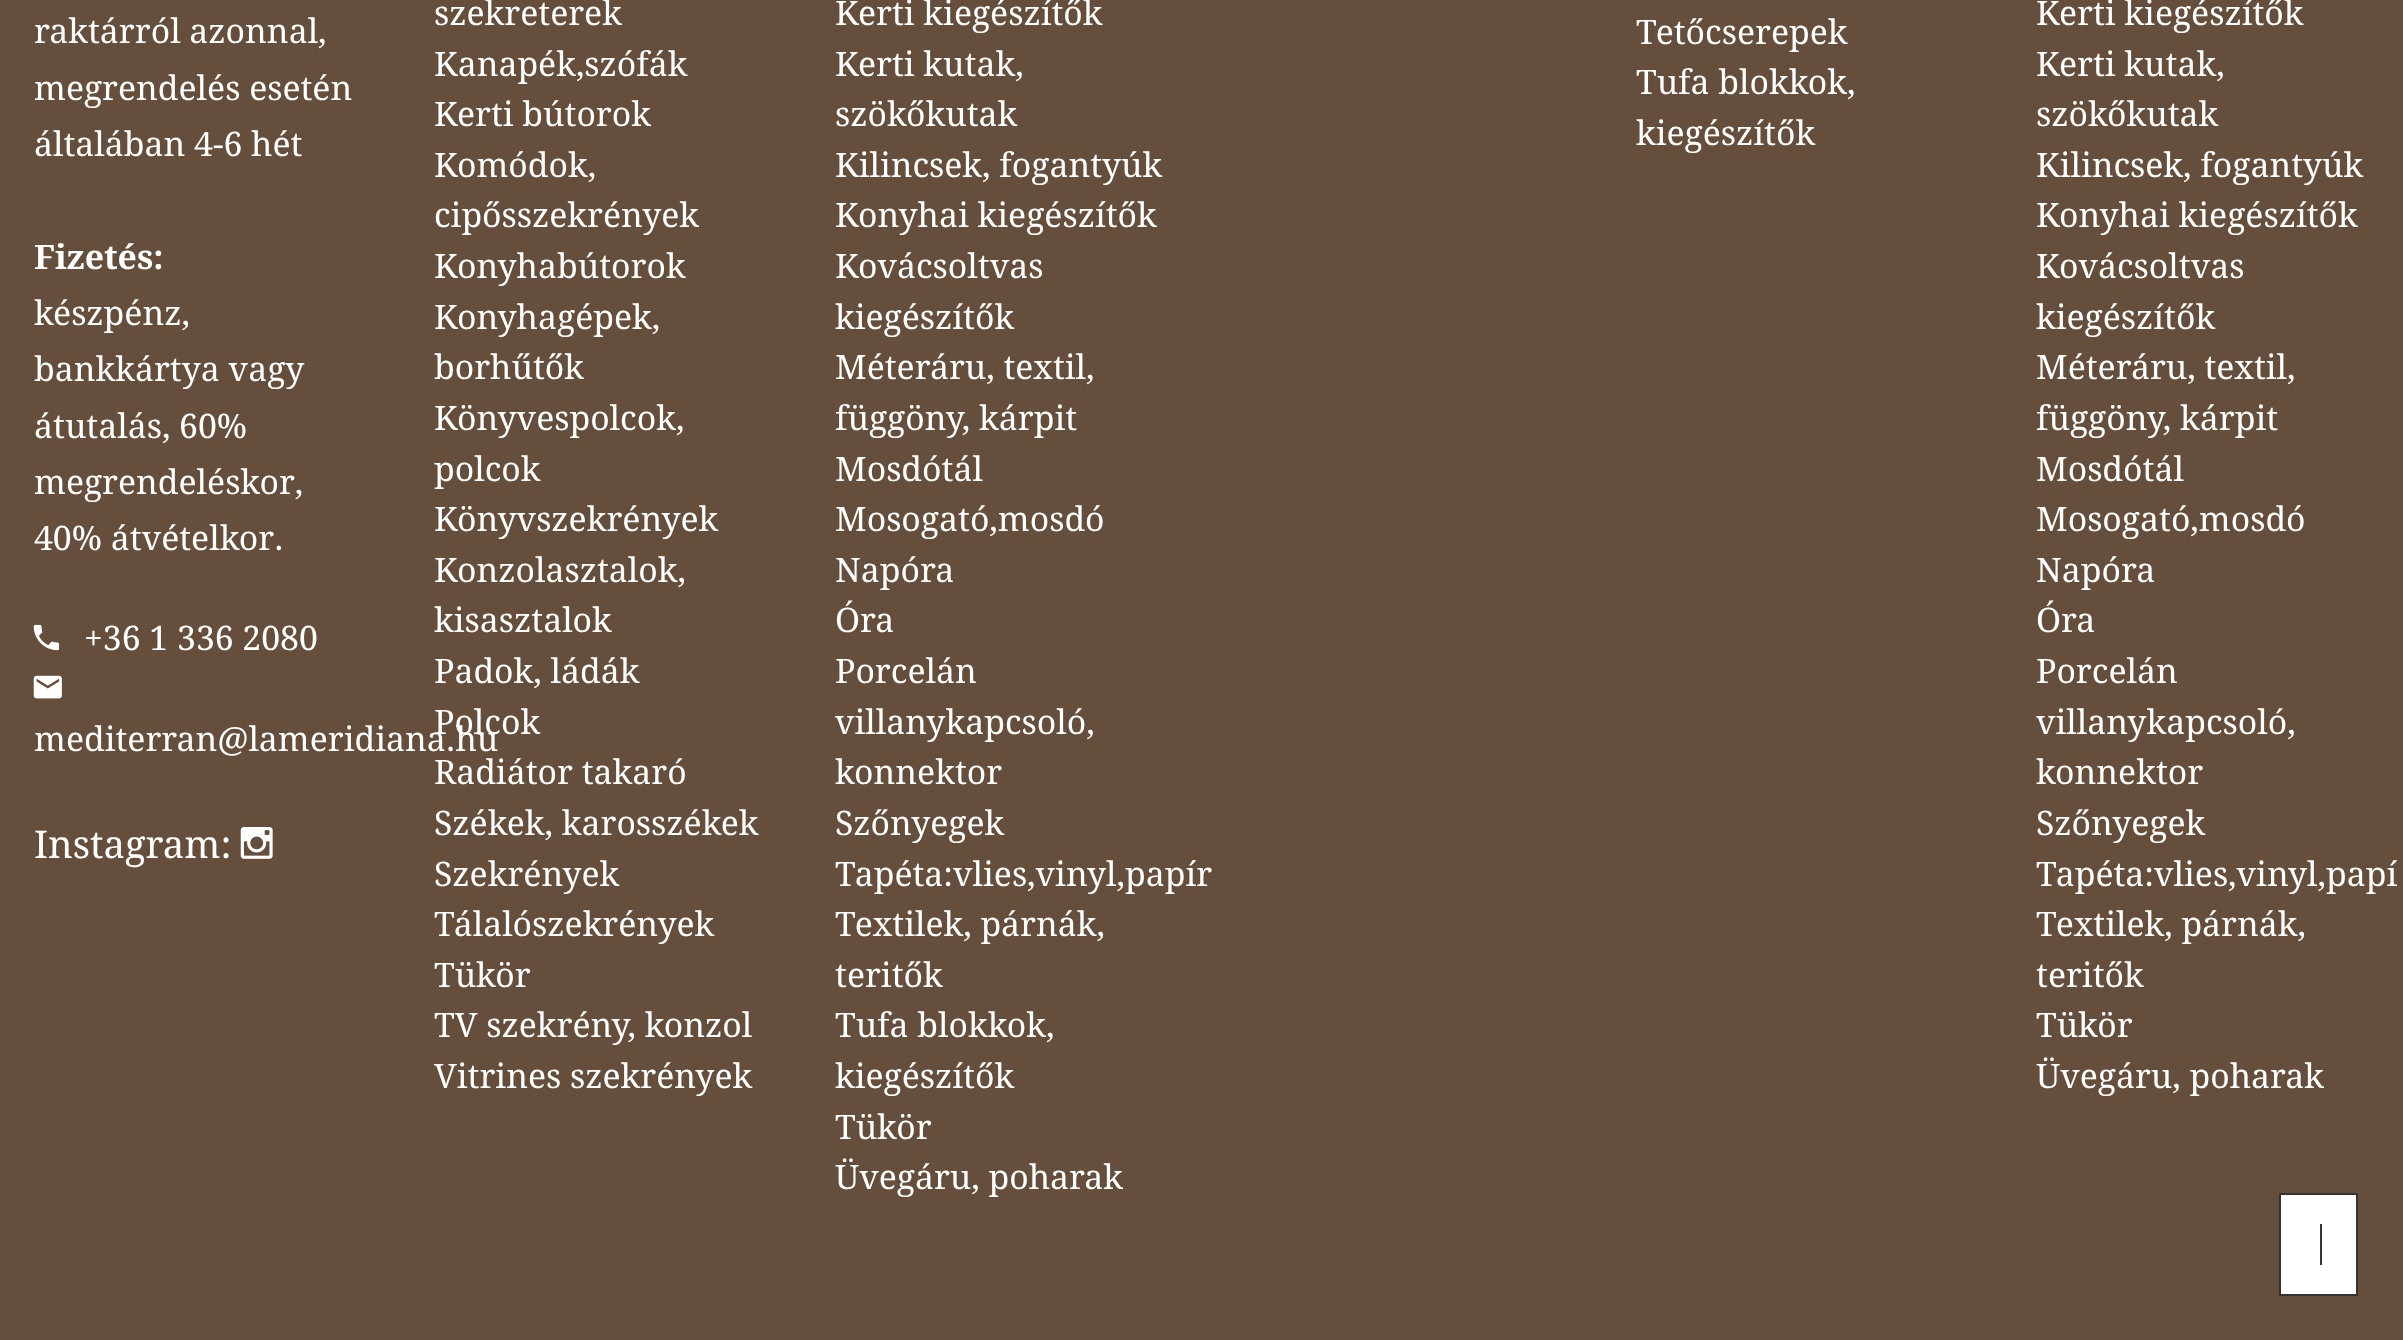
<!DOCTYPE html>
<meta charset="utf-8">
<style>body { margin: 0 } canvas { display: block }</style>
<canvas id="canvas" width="2403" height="1340"></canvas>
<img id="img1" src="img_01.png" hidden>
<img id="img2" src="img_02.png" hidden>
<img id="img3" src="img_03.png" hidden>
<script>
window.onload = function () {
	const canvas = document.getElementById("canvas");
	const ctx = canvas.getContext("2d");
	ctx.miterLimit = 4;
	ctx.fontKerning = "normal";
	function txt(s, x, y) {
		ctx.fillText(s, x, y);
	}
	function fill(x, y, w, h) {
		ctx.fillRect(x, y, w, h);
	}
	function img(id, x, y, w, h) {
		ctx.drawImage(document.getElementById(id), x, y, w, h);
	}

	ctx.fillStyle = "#654E3B";
	fill(0, 0, 2403, 1340);
	img("img1", 33, 624, 27, 27);
	img("img2", 33, 675, 29, 24);
	img("img3", 240, 827, 33, 32);
	ctx.fillStyle = "#FFFFFF";
	ctx.beginPath();
	ctx.rect(2280, 1194, 77, 101);
	ctx.fill();
	ctx.strokeStyle = "#333333";
	ctx.lineWidth = 2;
	ctx.stroke();
	ctx.fillStyle = "#333333";
	fill(2320, 1224, 2, 41);
	ctx.font = "33.75px Droid Serif";
	ctx.fillStyle = "#FFFFFF";
	txt("raktárról azonnal,", 34, 43);
	txt("megrendelés esetén", 34, 100);
	txt("általában 4-6 hét", 34, 156);
	ctx.font = "bold 33.75px Droid Serif";
	txt("Fizetés:", 34, 269);
	ctx.font = "33.75px Droid Serif";
	txt("készpénz,", 34, 325);
	txt("bankkártya vagy", 34, 381);
	txt("átutalás, 60%", 34, 438);
	txt("megrendeléskor,", 34, 494);
	txt("40% átvételkor.", 34, 550);
	txt("+36 1 336 2080", 84, 650);
	txt("mediterran@lameridiana.hu", 34, 751);
	ctx.font = "38.25px Droid Serif";
	txt("Instagram:", 34, 858);
	ctx.font = "33.75px Droid Serif";
	txt("szekreterek", 434, 25);
	txt("Kanapék,szófák", 434, 76);
	txt("Kerti bútorok", 434, 126);
	txt("Komódok,", 434, 177);
	txt("cipősszekrények", 434, 227);
	txt("Konyhabútorok", 434, 278);
	txt("Konyhagépek,", 434, 329);
	txt("borhűtők", 434, 379);
	txt("Könyvespolcok,", 434, 430);
	txt("polcok", 434, 481);
	txt("Könyvszekrények", 434, 531);
	txt("Konzolasztalok,", 434, 582);
	txt("kisasztalok", 434, 632);
	txt("Padok, ládák", 434, 683);
	txt("Polcok", 434, 734);
	txt("Radiátor takaró", 434, 784);
	txt("Székek, karosszékek", 434, 835);
	txt("Szekrények", 434, 886);
	txt("Tálalószekrények", 434, 936);
	txt("Tükör", 434, 987);
	txt("TV szekrény, konzol", 434, 1037);
	txt("Vitrines szekrények", 434, 1088);
	txt("Kerti kiegészítők", 835, 25);
	txt("Kerti kutak,", 835, 76);
	txt("szökőkutak", 835, 126);
	txt("Kilincsek, fogantyúk", 835, 177);
	txt("Konyhai kiegészítők", 835, 227);
	txt("Kovácsoltvas", 835, 278);
	txt("kiegészítők", 835, 329);
	txt("Méteráru, textil,", 835, 379);
	txt("függöny, kárpit", 835, 430);
	txt("Mosdótál", 835, 481);
	txt("Mosogató,mosdó", 835, 531);
	txt("Napóra", 835, 582);
	txt("Óra", 835, 632);
	txt("Porcelán", 835, 683);
	txt("villanykapcsoló,", 835, 734);
	txt("konnektor", 835, 784);
	txt("Szőnyegek", 835, 835);
	txt("Tapéta:vlies,vinyl,papír", 835, 886);
	txt("Textilek, párnák,", 835, 936);
	txt("teritők", 835, 987);
	txt("Tufa blokkok,", 835, 1037);
	txt("kiegészítők", 835, 1088);
	txt("Tükör", 835, 1139);
	txt("Üvegáru, poharak", 835, 1189);
	txt("Tetőcserepek", 1636, 44);
	txt("Tufa blokkok,", 1636, 94);
	txt("kiegészítők", 1636, 145);
	txt("Kerti kiegészítők", 2036, 25);
	txt("Kerti kutak,", 2036, 76);
	txt("szökőkutak", 2036, 126);
	txt("Kilincsek, fogantyúk", 2036, 177);
	txt("Konyhai kiegészítők", 2036, 227);
	txt("Kovácsoltvas", 2036, 278);
	txt("kiegészítők", 2036, 329);
	txt("Méteráru, textil,", 2036, 379);
	txt("függöny, kárpit", 2036, 430);
	txt("Mosdótál", 2036, 481);
	txt("Mosogató,mosdó", 2036, 531);
	txt("Napóra", 2036, 582);
	txt("Óra", 2036, 632);
	txt("Porcelán", 2036, 683);
	txt("villanykapcsoló,", 2036, 734);
	txt("konnektor", 2036, 784);
	txt("Szőnyegek", 2036, 835);
	txt("Tapéta:vlies,vinyl,papí", 2036, 886);
	txt("Textilek, párnák,", 2036, 936);
	txt("teritők", 2036, 987);
	txt("Tükör", 2036, 1037);
	txt("Üvegáru, poharak", 2036, 1088);
};
</script>
